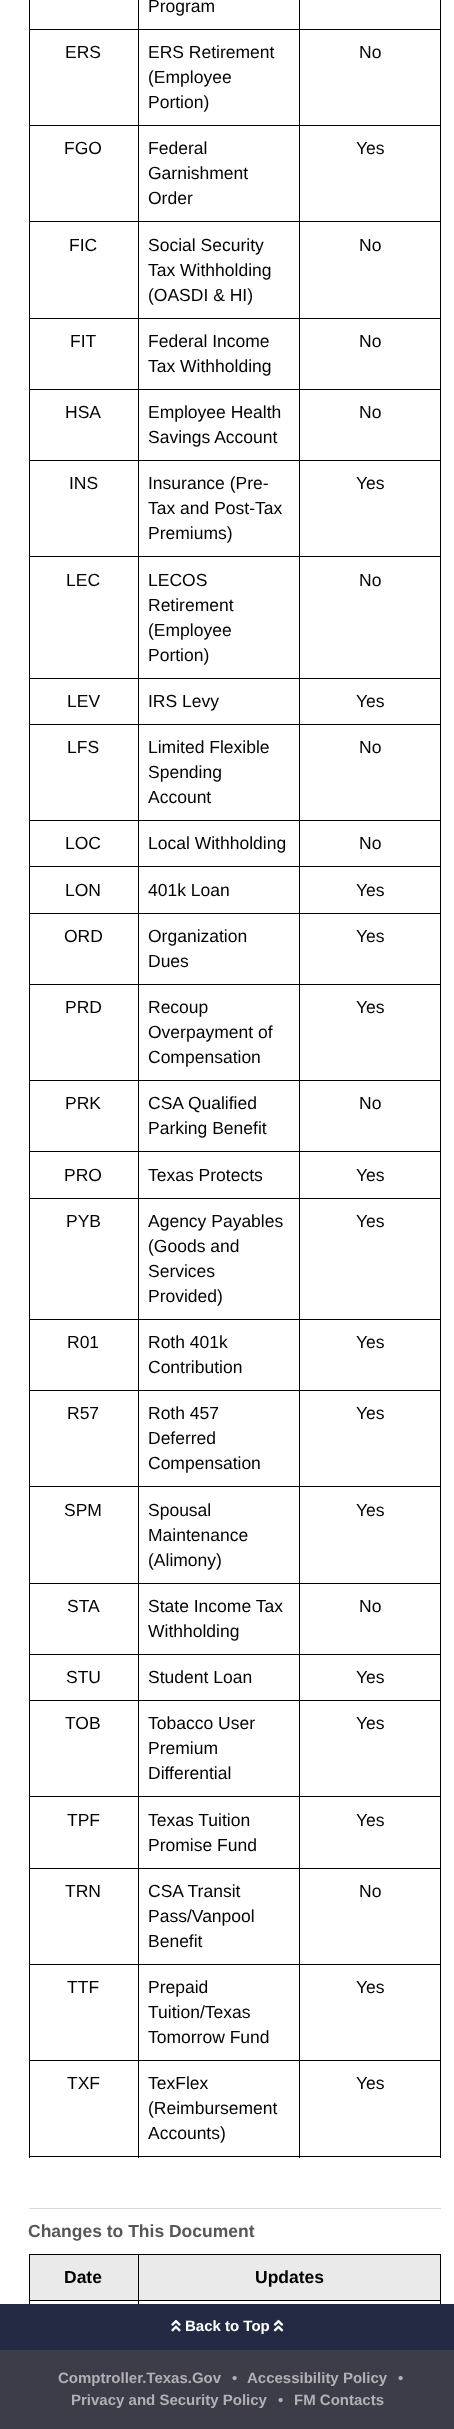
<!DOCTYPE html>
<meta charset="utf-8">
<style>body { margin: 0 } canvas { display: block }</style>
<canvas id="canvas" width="454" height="2429"></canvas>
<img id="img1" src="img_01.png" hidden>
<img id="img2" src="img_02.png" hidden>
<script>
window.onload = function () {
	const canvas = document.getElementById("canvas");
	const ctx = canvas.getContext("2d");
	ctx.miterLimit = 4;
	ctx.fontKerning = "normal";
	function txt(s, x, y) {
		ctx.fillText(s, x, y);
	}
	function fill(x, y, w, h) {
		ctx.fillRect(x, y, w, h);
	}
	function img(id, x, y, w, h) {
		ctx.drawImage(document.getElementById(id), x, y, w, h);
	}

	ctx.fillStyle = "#FFFFFF";
	fill(0, 0, 454, 2429);
	ctx.fillStyle = "#000000";
	fill(299, 29, 142, 1);
	fill(299, 125, 142, 1);
	fill(299, 221, 142, 1);
	fill(299, 318, 142, 1);
	fill(299, 389, 142, 1);
	fill(299, 460, 142, 1);
	fill(299, 556, 142, 1);
	fill(299, 678, 142, 1);
	fill(299, 724, 142, 1);
	fill(299, 820, 142, 1);
	fill(299, 866, 142, 1);
	fill(299, 913, 142, 1);
	fill(299, 984, 142, 1);
	fill(299, 1080, 142, 1);
	fill(299, 1151, 142, 1);
	fill(299, 1198, 142, 1);
	fill(299, 1319, 142, 1);
	fill(299, 1390, 142, 1);
	fill(299, 1486, 142, 1);
	fill(299, 1583, 142, 1);
	fill(299, 1654, 142, 1);
	fill(299, 1700, 142, 1);
	fill(299, 1796, 142, 1);
	fill(299, 1868, 142, 1);
	fill(299, 1964, 142, 1);
	fill(299, 2060, 142, 1);
	fill(440, 2060, 1, 98);
	fill(299, 2156, 142, 1);
	fill(299, 2060, 1, 98);
	fill(138, 2060, 162, 1);
	fill(299, 1964, 1, 97);
	fill(138, 1964, 162, 1);
	fill(299, 1868, 1, 97);
	fill(138, 1868, 162, 1);
	fill(299, 1796, 1, 73);
	fill(138, 1796, 162, 1);
	fill(299, 1700, 1, 98);
	fill(138, 1700, 162, 1);
	fill(299, 1654, 1, 47);
	fill(138, 1654, 162, 1);
	fill(299, 1583, 1, 72);
	fill(138, 1583, 162, 1);
	fill(299, 1486, 1, 98);
	fill(138, 1486, 162, 1);
	fill(299, 1390, 1, 98);
	fill(138, 1390, 162, 1);
	fill(299, 1319, 1, 72);
	fill(138, 1319, 162, 1);
	fill(299, 1198, 1, 122);
	fill(138, 1198, 162, 1);
	fill(299, 1151, 1, 48);
	fill(138, 1151, 162, 1);
	fill(299, 1080, 1, 73);
	fill(138, 1080, 162, 1);
	fill(299, 984, 1, 97);
	fill(138, 984, 162, 1);
	fill(299, 913, 1, 72);
	fill(138, 913, 162, 1);
	fill(299, 866, 1, 48);
	fill(138, 866, 162, 1);
	fill(299, 820, 1, 48);
	fill(138, 820, 162, 1);
	fill(299, 724, 1, 97);
	fill(138, 724, 162, 1);
	fill(299, 678, 1, 47);
	fill(138, 678, 162, 1);
	fill(299, 556, 1, 123);
	fill(138, 556, 162, 1);
	fill(299, 460, 1, 98);
	fill(138, 460, 162, 1);
	fill(299, 389, 1, 72);
	fill(138, 389, 162, 1);
	fill(299, 318, 1, 72);
	fill(138, 318, 162, 1);
	fill(299, 221, 1, 98);
	fill(138, 221, 162, 1);
	fill(299, 125, 1, 98);
	fill(138, 125, 162, 1);
	fill(299, 29, 1, 97);
	fill(138, 29, 162, 1);
	fill(138, 2156, 162, 1);
	fill(138, 2060, 1, 98);
	fill(29, 2060, 110, 1);
	fill(138, 1964, 1, 97);
	fill(29, 1964, 110, 1);
	fill(138, 1868, 1, 97);
	fill(29, 1868, 110, 1);
	fill(138, 1796, 1, 73);
	fill(29, 1796, 110, 1);
	fill(138, 1700, 1, 98);
	fill(29, 1700, 110, 1);
	fill(138, 1654, 1, 47);
	fill(29, 1654, 110, 1);
	fill(138, 1583, 1, 72);
	fill(29, 1583, 110, 1);
	fill(138, 1486, 1, 98);
	fill(29, 1486, 110, 1);
	fill(138, 1390, 1, 98);
	fill(29, 1390, 110, 1);
	fill(138, 1319, 1, 72);
	fill(29, 1319, 110, 1);
	fill(138, 1198, 1, 122);
	fill(29, 1198, 110, 1);
	fill(138, 1151, 1, 48);
	fill(29, 1151, 110, 1);
	fill(138, 1080, 1, 73);
	fill(29, 1080, 110, 1);
	fill(138, 984, 1, 97);
	fill(29, 984, 110, 1);
	fill(138, 913, 1, 72);
	fill(29, 913, 110, 1);
	fill(138, 866, 1, 48);
	fill(29, 866, 110, 1);
	fill(138, 820, 1, 48);
	fill(29, 820, 110, 1);
	fill(138, 724, 1, 97);
	fill(29, 724, 110, 1);
	fill(138, 678, 1, 47);
	fill(29, 678, 110, 1);
	fill(138, 556, 1, 123);
	fill(29, 556, 110, 1);
	fill(138, 460, 1, 98);
	fill(29, 460, 110, 1);
	fill(138, 389, 1, 72);
	fill(29, 389, 110, 1);
	fill(138, 318, 1, 72);
	fill(29, 318, 110, 1);
	fill(138, 221, 1, 98);
	fill(29, 221, 110, 1);
	fill(138, 125, 1, 98);
	fill(29, 125, 110, 1);
	fill(138, 29, 1, 97);
	fill(29, 29, 110, 1);
	fill(138, 0, 1, 30);
	fill(299, 0, 1, 30);
	fill(29, 2156, 110, 1);
	fill(29, 2060, 1, 98);
	fill(29, 1964, 1, 97);
	fill(29, 1868, 1, 97);
	fill(29, 1796, 1, 73);
	fill(29, 1700, 1, 98);
	fill(29, 1654, 1, 47);
	fill(29, 1583, 1, 72);
	fill(29, 1486, 1, 98);
	fill(29, 1390, 1, 98);
	fill(29, 1319, 1, 72);
	fill(29, 1198, 1, 122);
	fill(29, 1151, 1, 48);
	fill(29, 1080, 1, 73);
	fill(29, 984, 1, 97);
	fill(29, 913, 1, 72);
	fill(29, 866, 1, 48);
	fill(29, 820, 1, 48);
	fill(29, 724, 1, 97);
	fill(29, 678, 1, 47);
	fill(29, 556, 1, 123);
	fill(29, 460, 1, 98);
	fill(29, 389, 1, 72);
	fill(29, 318, 1, 72);
	fill(29, 221, 1, 98);
	fill(29, 125, 1, 98);
	fill(29, 0, 1, 126);
	fill(440, 1964, 1, 97);
	fill(440, 1868, 1, 97);
	fill(440, 1796, 1, 73);
	fill(440, 1700, 1, 98);
	fill(440, 1654, 1, 47);
	fill(440, 1583, 1, 72);
	fill(440, 1486, 1, 98);
	fill(440, 1390, 1, 98);
	fill(440, 1319, 1, 72);
	fill(440, 1198, 1, 122);
	fill(440, 1151, 1, 48);
	fill(440, 1080, 1, 73);
	fill(440, 984, 1, 97);
	fill(440, 913, 1, 72);
	fill(440, 866, 1, 48);
	fill(440, 820, 1, 48);
	fill(440, 724, 1, 97);
	fill(440, 678, 1, 47);
	fill(440, 556, 1, 123);
	fill(440, 460, 1, 98);
	fill(440, 389, 1, 72);
	fill(440, 318, 1, 72);
	fill(440, 221, 1, 98);
	fill(440, 125, 1, 98);
	fill(440, 0, 1, 126);
	ctx.fillStyle = "#D9D9D9";
	fill(29, 2208, 412, 1);
	ctx.fillStyle = "#000000";
	fill(138, 2300, 303, 1);
	fill(138, 2300, 1, 4);
	fill(29, 2300, 110, 1);
	fill(29, 2254, 412, 1);
	fill(29, 2254, 1, 50);
	fill(440, 2254, 1, 50);
	ctx.fillStyle = "#EAEAEA";
	fill(30, 2255, 108, 45);
	fill(139, 2255, 301, 45);
	ctx.fillStyle = "#000000";
	fill(138, 2254, 1, 47);
	ctx.fillStyle = "#252A44";
	fill(0, 2304, 454, 46);
	img("img1", 171, 2319, 10, 13);
	img("img2", 273, 2319, 11, 13);
	ctx.fillStyle = "#3D3C49";
	fill(0, 2350, 454, 79);
	ctx.font = "17.5px Liberation Sans";
	ctx.fillStyle = "#000000";
	txt("Program", 148, 12);
	txt("ERS", 65, 58);
	txt("ERS Retirement", 148, 58);
	txt("(Employee", 148, 83);
	txt("Portion)", 148, 108);
	txt("No", 359, 58);
	txt("FGO", 64, 154);
	txt("Federal", 148, 154);
	txt("Garnishment", 148, 179);
	txt("Order", 148, 204);
	txt("Yes", 356, 154);
	txt("FIC", 69, 251);
	txt("Social Security", 148, 251);
	txt("Tax Withholding", 148, 276);
	txt("(OASDI & HI)", 148, 301);
	txt("No", 359, 251);
	txt("FIT", 70, 347);
	txt("Federal Income", 148, 347);
	txt("Tax Withholding", 148, 372);
	txt("No", 359, 347);
	txt("HSA", 65, 418);
	txt("Employee Health", 148, 418);
	txt("Savings Account", 148, 443);
	txt("No", 359, 418);
	txt("INS", 69, 489);
	txt("Insurance (Pre-", 148, 489);
	txt("Tax and Post-Tax", 148, 514);
	txt("Premiums)", 148, 539);
	txt("Yes", 356, 489);
	txt("LEC", 66, 586);
	txt("LECOS", 148, 586);
	txt("Retirement", 148, 611);
	txt("(Employee", 148, 636);
	txt("Portion)", 148, 661);
	txt("No", 359, 586);
	txt("LEV", 67, 707);
	txt("IRS Levy", 148, 707);
	txt("Yes", 356, 707);
	txt("LFS", 67, 753);
	txt("Limited Flexible", 148, 753);
	txt("Spending", 148, 778);
	txt("Account", 148, 803);
	txt("No", 359, 753);
	txt("LOC", 65, 849);
	txt("Local Withholding", 148, 849);
	txt("No", 359, 849);
	txt("LON", 65, 896);
	txt("401k Loan", 148, 896);
	txt("Yes", 356, 896);
	txt("ORD", 64, 942);
	txt("Organization", 148, 942);
	txt("Dues", 148, 967);
	txt("Yes", 356, 942);
	txt("PRD", 65, 1013);
	txt("Recoup", 148, 1013);
	txt("Overpayment of", 148, 1038);
	txt("Compensation", 148, 1063);
	txt("Yes", 356, 1013);
	txt("PRK", 65, 1109);
	txt("CSA Qualified", 148, 1109);
	txt("Parking Benefit", 148, 1134);
	txt("No", 359, 1109);
	txt("PRO", 64, 1181);
	txt("Texas Protects", 148, 1181);
	txt("Yes", 356, 1181);
	txt("PYB", 66, 1227);
	txt("Agency Payables", 148, 1227);
	txt("(Goods and", 148, 1252);
	txt("Services", 148, 1277);
	txt("Provided)", 148, 1302);
	txt("Yes", 356, 1227);
	txt("R01", 67, 1348);
	txt("Roth 401k", 148, 1348);
	txt("Contribution", 148, 1373);
	txt("Yes", 356, 1348);
	txt("R57", 67, 1419);
	txt("Roth 457", 148, 1419);
	txt("Deferred", 148, 1444);
	txt("Compensation", 148, 1469);
	txt("Yes", 356, 1419);
	txt("SPM", 64, 1516);
	txt("Spousal", 148, 1516);
	txt("Maintenance", 148, 1541);
	txt("(Alimony)", 148, 1566);
	txt("Yes", 356, 1516);
	txt("STA", 67, 1612);
	txt("State Income Tax", 148, 1612);
	txt("Withholding", 148, 1637);
	txt("No", 359, 1612);
	txt("STU", 66, 1683);
	txt("Student Loan", 148, 1683);
	txt("Yes", 356, 1683);
	txt("TOB", 65, 1729);
	txt("Tobacco User", 148, 1729);
	txt("Premium", 148, 1754);
	txt("Differential", 148, 1779);
	txt("Yes", 356, 1729);
	txt("TPF", 67, 1826);
	txt("Texas Tuition", 148, 1826);
	txt("Promise Fund", 148, 1851);
	txt("Yes", 356, 1826);
	txt("TRN", 65, 1897);
	txt("CSA Transit", 148, 1897);
	txt("Pass/Vanpool", 148, 1922);
	txt("Benefit", 148, 1947);
	txt("No", 359, 1897);
	txt("TTF", 67, 1993);
	txt("Prepaid", 148, 1993);
	txt("Tuition/Texas", 148, 2018);
	txt("Tomorrow Fund", 148, 2043);
	txt("Yes", 356, 1993);
	txt("TXF", 67, 2089);
	txt("TexFlex", 148, 2089);
	txt("(Reimbursement", 148, 2114);
	txt("Accounts)", 148, 2139);
	txt("Yes", 356, 2089);
	ctx.font = "bold 17.5px Liberation Sans";
	ctx.fillStyle = "#575757";
	txt("Changes to This Document", 28, 2237);
	ctx.fillStyle = "#000000";
	txt("Date", 64, 2283);
	txt("Updates", 255, 2283);
	ctx.font = "bold 15px Liberation Sans";
	ctx.fillStyle = "#FFFFFF";
	txt("Back to Top", 185, 2331);
	ctx.fillStyle = "#B0B0B5";
	txt("Comptroller.Texas.Gov", 58, 2383);
	txt("•", 232, 2383);
	txt("Accessibility Policy", 247, 2383);
	txt("•", 398, 2383);
	txt("Privacy and Security Policy", 71, 2405);
	txt("•", 278, 2405);
	txt("FM Contacts", 294, 2405);
};
</script>
